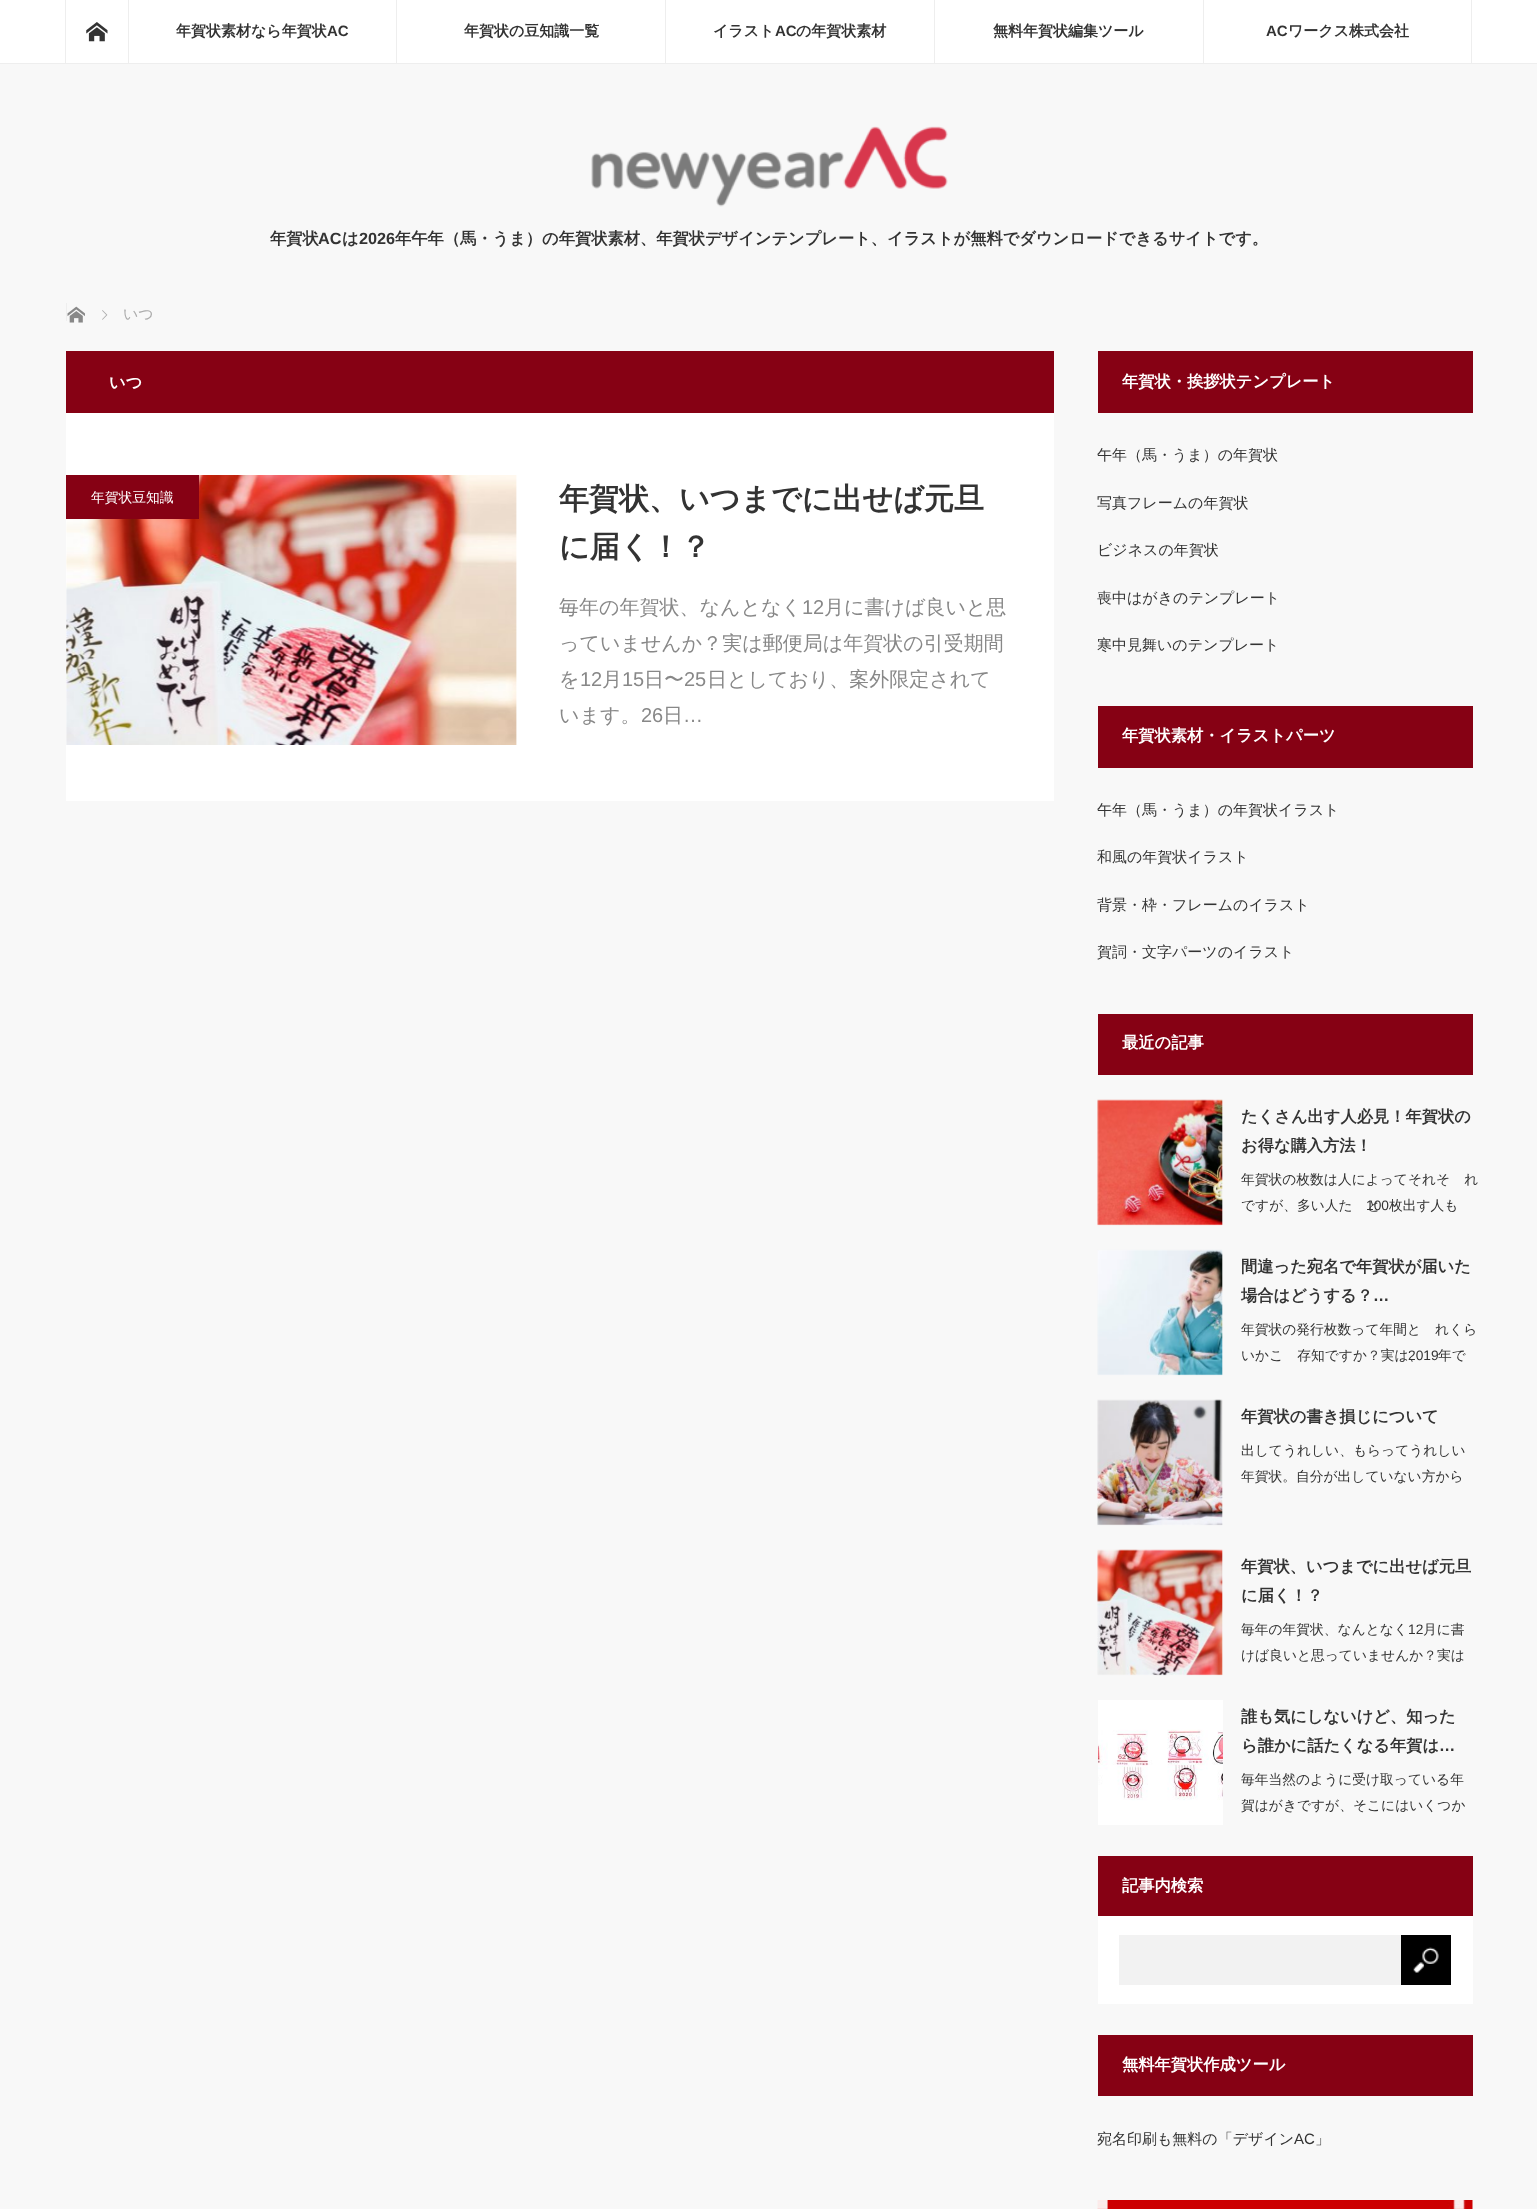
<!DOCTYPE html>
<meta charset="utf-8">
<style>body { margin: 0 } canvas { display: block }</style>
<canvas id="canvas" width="1537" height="2209"></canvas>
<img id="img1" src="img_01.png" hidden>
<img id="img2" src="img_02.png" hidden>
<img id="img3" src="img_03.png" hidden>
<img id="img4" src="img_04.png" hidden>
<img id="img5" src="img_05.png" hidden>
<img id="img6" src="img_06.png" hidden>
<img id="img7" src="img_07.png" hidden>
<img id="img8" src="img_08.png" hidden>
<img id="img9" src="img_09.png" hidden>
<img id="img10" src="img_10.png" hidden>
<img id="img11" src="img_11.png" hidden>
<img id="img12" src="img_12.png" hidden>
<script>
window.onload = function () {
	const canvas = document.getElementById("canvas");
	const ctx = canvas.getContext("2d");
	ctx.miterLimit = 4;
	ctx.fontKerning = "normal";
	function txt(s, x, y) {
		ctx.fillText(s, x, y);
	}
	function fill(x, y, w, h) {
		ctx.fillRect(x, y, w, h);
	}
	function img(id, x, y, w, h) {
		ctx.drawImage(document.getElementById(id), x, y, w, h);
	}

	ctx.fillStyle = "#F8F8F8";
	fill(0, 0, 1537, 2209);
	ctx.fillStyle = "#FFFFFF";
	fill(0, 0, 1537, 63);
	ctx.fillStyle = "#EEEEEE";
	fill(0, 63, 1537, 1);
	fill(1471, 0, 1, 63);
	fill(65, 0, 1, 63);
	img("img1", 86, 22, 22, 20);
	fill(128, 0, 1, 63);
	fill(396, 0, 1, 63);
	fill(665, 0, 1, 63);
	fill(934, 0, 1, 63);
	fill(1203, 0, 1, 63);
	img("img2", 591, 126, 357, 81);
	fill(66, 303, 1, 18);
	img("img3", 67, 306, 18, 17);
	img("img4", 102, 310, 6, 10);
	ctx.fillStyle = "#FFFFFF";
	fill(66, 413, 988, 388);
	ctx.fillStyle = "#860114";
	fill(66, 351, 988, 62);
	img("img5", 66, 475, 451, 270);
	fill(66, 475, 133, 44);
	fill(1098, 351, 375, 62);
	fill(1098, 706, 375, 62);
	fill(1098, 1014, 375, 61);
	img("img6", 1097, 1099, 126, 127);
	img("img7", 1097, 1249, 126, 127);
	img("img8", 1097, 1399, 126, 127);
	img("img9", 1097, 1549, 126, 127);
	img("img10", 1098, 1700, 125, 125);
	ctx.fillStyle = "#FFFFFF";
	fill(1098, 1916, 375, 88);
	ctx.fillStyle = "#860114";
	fill(1098, 1856, 375, 60);
	ctx.fillStyle = "#F2F2F2";
	fill(1119, 1935, 282, 50);
	ctx.fillStyle = "#000000";
	fill(1401, 1935, 50, 50);
	img("img11", 1413, 1947, 26, 26);
	ctx.fillStyle = "#860114";
	fill(1098, 2035, 375, 61);
	img("img12", 1097, 2200, 376, 9);
	ctx.font = "bold 15px WenQuanYi Zen Hei";
	ctx.fillStyle = "#333333";
	txt("年賀状素材なら年賀状", 176, 36);
	ctx.font = "bold 15px Liberation Sans";
	txt("AC", 327, 36);
	ctx.font = "bold 15px WenQuanYi Zen Hei";
	txt("年賀状の豆知識一覧", 464, 36);
	txt("イラスト", 713, 36);
	ctx.font = "bold 15px Liberation Sans";
	txt("AC", 775, 36);
	ctx.font = "bold 15px WenQuanYi Zen Hei";
	txt("の年賀状素材", 796, 36);
	txt("無料年賀状編集ツール", 993, 36);
	ctx.font = "bold 15px Liberation Sans";
	txt("AC", 1266, 36);
	ctx.font = "bold 15px WenQuanYi Zen Hei";
	txt("ワークス株式会社", 1288, 36);
	ctx.font = "bold 16.25px WenQuanYi Zen Hei";
	txt("年賀状", 270, 244);
	ctx.font = "bold 16.25px Liberation Sans";
	txt("AC", 318, 244);
	ctx.font = "bold 16.25px WenQuanYi Zen Hei";
	txt("は", 342, 244);
	ctx.font = "bold 16.25px Liberation Sans";
	txt("2026", 359, 244);
	ctx.font = "bold 16.25px WenQuanYi Zen Hei";
	txt("年午年（馬・うま）の年賀状素材、年賀状デザインテンプレート、イラストが無料でダウンロードできるサイトです。", 395, 244);
	ctx.font = "500 15px WenQuanYi Zen Hei";
	ctx.fillStyle = "#AAAAAA";
	txt("いつ", 123, 319);
	ctx.font = "bold 16.25px WenQuanYi Zen Hei";
	ctx.fillStyle = "#FFFFFF";
	txt("いつ", 109, 388);
	ctx.font = "500 13.75px WenQuanYi Zen Hei";
	txt("年賀状豆知識", 91, 502);
	ctx.font = "bold 30px WenQuanYi Zen Hei";
	ctx.fillStyle = "#333333";
	txt("年賀状、いつまでに出せば元旦", 559, 509);
	txt("に届く！？", 559, 557);
	ctx.font = "500 20px WenQuanYi Zen Hei";
	ctx.fillStyle = "#888888";
	txt("毎年の年賀状、なんとなく", 559, 614);
	ctx.font = "20px Liberation Sans";
	txt("12", 802, 614);
	ctx.font = "500 20px WenQuanYi Zen Hei";
	txt("月に書けば良いと思", 824, 614);
	txt("っていませんか？実は郵便局は年賀状の引受期間", 559, 650);
	txt("を", 559, 686);
	ctx.font = "20px Liberation Sans";
	txt("12", 580, 686);
	ctx.font = "500 20px WenQuanYi Zen Hei";
	txt("月", 602, 686);
	ctx.font = "20px Liberation Sans";
	txt("15", 622, 686);
	ctx.font = "500 20px WenQuanYi Zen Hei";
	txt("日〜", 644, 686);
	ctx.font = "20px Liberation Sans";
	txt("25", 684, 686);
	ctx.font = "500 20px WenQuanYi Zen Hei";
	txt("日としており、案外限定されて", 707, 686);
	txt("います。", 559, 722);
	ctx.font = "20px Liberation Sans";
	txt("26", 641, 722);
	ctx.font = "500 20px WenQuanYi Zen Hei";
	txt("日", 663, 722);
	ctx.font = "20px Liberation Sans";
	txt("…", 683, 722);
	ctx.font = "bold 16.25px WenQuanYi Zen Hei";
	ctx.fillStyle = "#FFFFFF";
	txt("年賀状・挨拶状テンプレート", 1122, 387);
	ctx.font = "500 15px WenQuanYi Zen Hei";
	ctx.fillStyle = "#333333";
	txt("午年（馬・うま）の年賀状", 1097, 460);
	txt("写真フレームの年賀状", 1097, 508);
	txt("ビジネスの年賀状", 1097, 555);
	txt("喪中はがきのテンプレート", 1097, 603);
	txt("寒中見舞いのテンプレート", 1097, 650);
	ctx.font = "bold 16.25px WenQuanYi Zen Hei";
	ctx.fillStyle = "#FFFFFF";
	txt("年賀状素材・イラストパーツ", 1122, 741);
	ctx.font = "500 15px WenQuanYi Zen Hei";
	ctx.fillStyle = "#333333";
	txt("午年（馬・うま）の年賀状イラスト", 1097, 815);
	txt("和風の年賀状イラスト", 1097, 862);
	txt("背景・枠・フレームのイラスト", 1097, 910);
	txt("賀詞・文字パーツのイラスト", 1097, 957);
	ctx.font = "bold 16.25px WenQuanYi Zen Hei";
	ctx.fillStyle = "#FFFFFF";
	txt("最近の記事", 1122, 1048);
	ctx.fillStyle = "#333333";
	txt("たくさん出す人必見！年賀状の", 1241, 1122);
	txt("お得な購入方法！", 1241, 1151);
	ctx.font = "500 13.75px WenQuanYi Zen Hei";
	txt("年賀状の枚数は人によってそれぞれ", 1241, 1184);
	txt("ですが、多い人だと", 1241, 1210);
	ctx.font = "13.75px Liberation Sans";
	txt("100", 1366, 1210);
	ctx.font = "500 13.75px WenQuanYi Zen Hei";
	txt("枚出す人も", 1389, 1210);
	ctx.font = "bold 16.25px WenQuanYi Zen Hei";
	txt("間違った宛名で年賀状が届いた", 1241, 1272);
	txt("場合はどうする？", 1241, 1301);
	ctx.font = "bold 16.25px Liberation Sans";
	txt("…", 1373, 1301);
	ctx.font = "500 13.75px WenQuanYi Zen Hei";
	txt("年賀状の発行枚数って年間どれくら", 1241, 1334);
	txt("いかご存知ですか？実は、", 1241, 1360);
	ctx.font = "13.75px Liberation Sans";
	txt("2019", 1408, 1360);
	ctx.font = "500 13.75px WenQuanYi Zen Hei";
	txt("年で", 1438, 1360);
	ctx.font = "bold 16.25px WenQuanYi Zen Hei";
	txt("年賀状の書き損じについて", 1241, 1422);
	ctx.font = "500 13.75px WenQuanYi Zen Hei";
	txt("出してうれしい、もらってうれしい", 1241, 1455);
	txt("年賀状。自分が出していない方から", 1241, 1481);
	ctx.font = "bold 16.25px WenQuanYi Zen Hei";
	txt("年賀状、いつまでに出せば元旦", 1241, 1572);
	txt("に届く！？", 1241, 1601);
	ctx.font = "500 13.75px WenQuanYi Zen Hei";
	txt("毎年の年賀状、なんとなく", 1241, 1634);
	ctx.font = "13.75px Liberation Sans";
	txt("12", 1408, 1634);
	ctx.font = "500 13.75px WenQuanYi Zen Hei";
	txt("月に書", 1423, 1634);
	txt("けば良いと思っていませんか？実は", 1241, 1660);
	ctx.font = "bold 16.25px WenQuanYi Zen Hei";
	txt("誰も気にしないけど、知った", 1241, 1722);
	txt("ら誰かに話たくなる年賀は", 1241, 1751);
	ctx.font = "bold 16.25px Liberation Sans";
	txt("…", 1439, 1751);
	ctx.font = "500 13.75px WenQuanYi Zen Hei";
	txt("毎年当然のように受け取っている年", 1241, 1784);
	txt("賀はがきですが、そこにはいくつか", 1241, 1810);
	ctx.font = "bold 16.25px WenQuanYi Zen Hei";
	ctx.fillStyle = "#FFFFFF";
	txt("記事内検索", 1122, 1891);
	txt("無料年賀状作成ツール", 1122, 2070);
	ctx.font = "500 15px WenQuanYi Zen Hei";
	ctx.fillStyle = "#333333";
	txt("宛名印刷も無料の「デザイン", 1097, 2144);
	ctx.font = "15px Liberation Sans";
	txt("AC", 1294, 2144);
	ctx.font = "500 15px WenQuanYi Zen Hei";
	txt("」", 1315, 2144);
};
</script>
